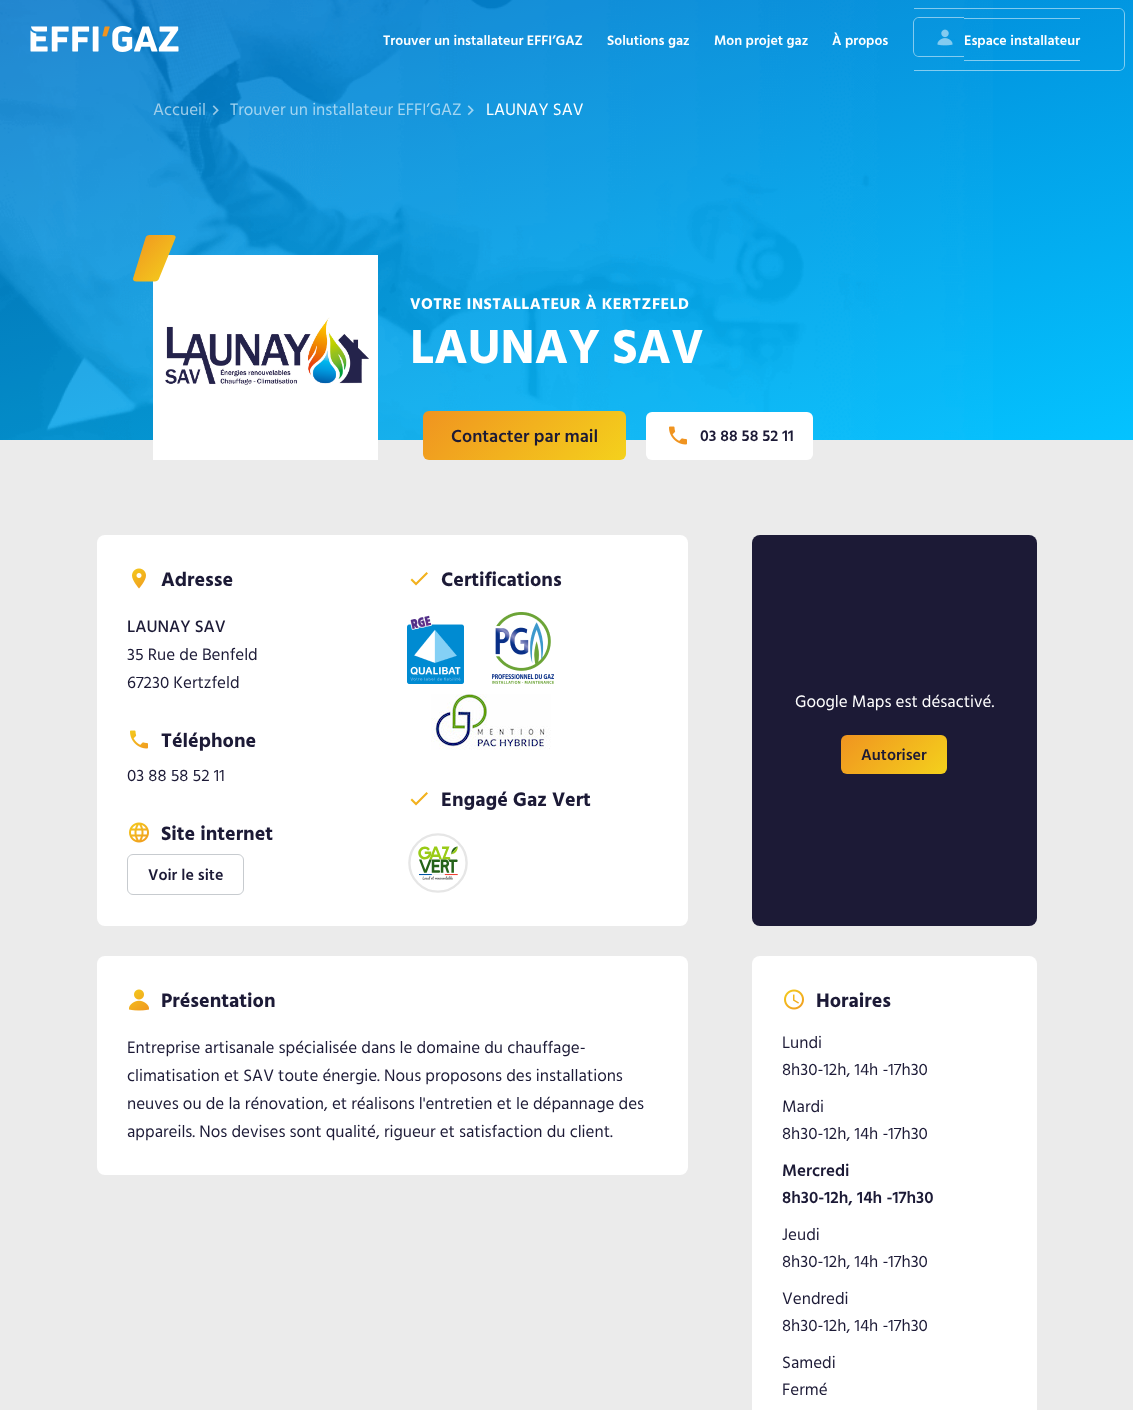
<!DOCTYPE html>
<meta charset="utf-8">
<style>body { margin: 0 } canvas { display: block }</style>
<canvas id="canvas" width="1133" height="1410"></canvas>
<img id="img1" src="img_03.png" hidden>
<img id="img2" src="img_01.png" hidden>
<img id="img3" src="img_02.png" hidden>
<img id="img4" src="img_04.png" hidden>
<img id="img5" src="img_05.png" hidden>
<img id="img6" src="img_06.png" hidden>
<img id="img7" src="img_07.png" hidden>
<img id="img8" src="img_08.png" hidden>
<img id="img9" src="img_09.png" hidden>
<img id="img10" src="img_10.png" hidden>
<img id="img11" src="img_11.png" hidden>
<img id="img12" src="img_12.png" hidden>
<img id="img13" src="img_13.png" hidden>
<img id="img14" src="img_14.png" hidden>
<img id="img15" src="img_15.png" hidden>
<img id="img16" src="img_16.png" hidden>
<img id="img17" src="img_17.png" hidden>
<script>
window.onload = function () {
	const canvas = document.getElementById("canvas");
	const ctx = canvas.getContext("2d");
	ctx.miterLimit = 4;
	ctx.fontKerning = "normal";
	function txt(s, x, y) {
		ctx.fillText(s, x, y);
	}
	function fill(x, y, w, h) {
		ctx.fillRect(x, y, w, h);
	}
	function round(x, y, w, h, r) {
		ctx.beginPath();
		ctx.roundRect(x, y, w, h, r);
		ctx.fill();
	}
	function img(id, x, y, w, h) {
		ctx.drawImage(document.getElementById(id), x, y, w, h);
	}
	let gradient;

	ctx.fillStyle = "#EBEBEB";
	fill(0, 0, 1133, 1410);
	gradient = ctx.createLinearGradient(461, -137, 672, 577);
	gradient.addColorStop(0, "#0075CA");
	gradient.addColorStop(1, "#04C3FF");
	ctx.fillStyle = gradient;
	fill(0, 0, 1133, 440);
	img("img1", 0, 0, 993, 440);
	img("img2", 30, 26, 149, 26);
	ctx.fillStyle = "rgba(255, 255, 255, 0.5)";
	ctx.beginPath();
	ctx.moveTo(919, 17);
	ctx.lineTo(964, 17);
	ctx.lineTo(964, 57);
	ctx.lineTo(919, 57);
	ctx.bezierCurveTo(916, 57, 913, 54, 913, 51);
	ctx.lineTo(913, 23);
	ctx.bezierCurveTo(913, 20, 916, 17, 919, 17);
	ctx.closePath();
	ctx.moveTo(919, 18);
	ctx.lineTo(964, 18);
	ctx.lineTo(964, 56);
	ctx.lineTo(919, 56);
	ctx.bezierCurveTo(916, 56, 914, 54, 914, 51);
	ctx.lineTo(914, 23);
	ctx.bezierCurveTo(914, 20, 916, 18, 919, 18);
	ctx.closePath();
	ctx.fill("evenodd");
	fill(964, 18, 116, 1);
	fill(964, 60, 116, 1);
	ctx.beginPath();
	ctx.moveTo(914, 8);
	ctx.lineTo(1119, 8);
	ctx.bezierCurveTo(1122, 8, 1125, 11, 1125, 14);
	ctx.lineTo(1125, 65);
	ctx.bezierCurveTo(1125, 68, 1122, 71, 1119, 71);
	ctx.lineTo(914, 71);
	ctx.closePath();
	ctx.moveTo(914, 9);
	ctx.lineTo(1119, 9);
	ctx.bezierCurveTo(1122, 9, 1124, 11, 1124, 14);
	ctx.lineTo(1124, 65);
	ctx.bezierCurveTo(1124, 68, 1122, 70, 1119, 70);
	ctx.lineTo(914, 70);
	ctx.closePath();
	ctx.fill("evenodd");
	img("img3", 937, 29, 16, 17);
	img("img4", 212, 105, 7, 11);
	img("img5", 467, 105, 7, 11);
	ctx.fillStyle = "#FFFFFF";
	fill(153, 255, 225, 205);
	img("img6", 133, 235, 43, 47);
	img("img7", 165, 317, 204, 68);
	gradient = ctx.createLinearGradient(462, 373, 588, 499);
	gradient.addColorStop(0, "#F09420");
	gradient.addColorStop(1, "#F4D11C");
	ctx.fillStyle = gradient;
	round(423, 411, 203, 49, 6);
	ctx.fillStyle = "#FFFFFF";
	round(646, 412, 167, 48, 6);
	img("img8", 669, 426, 18, 19);
	round(97, 535, 591, 391, 8);
	img("img9", 132, 568, 14, 21);
	img("img10", 130, 730, 18, 19);
	img("img11", 129, 822, 20, 21);
	ctx.beginPath();
	ctx.roundRect(127.5, 854.5, 116, 40, 5.5);
	ctx.strokeStyle = "#C7CBCF";
	ctx.stroke();
	gradient = ctx.createLinearGradient(429, 592, 410, 565);
	gradient.addColorStop(0, "#F09420");
	gradient.addColorStop(1, "#F4D11C");
	ctx.fillStyle = gradient;
	ctx.beginPath();
	ctx.moveTo(416, 582.5);
	ctx.lineTo(412, 578.5);
	ctx.lineTo(410.5, 580);
	ctx.lineTo(416, 585.5);
	ctx.lineTo(428, 573.5);
	ctx.lineTo(426.5, 572);
	ctx.closePath();
	ctx.fill();
	img("img12", 407, 615, 57, 69);
	img("img13", 492, 612, 62, 72);
	img("img14", 431, 694, 120, 56);
	gradient = ctx.createLinearGradient(429, 812, 410, 785);
	gradient.addColorStop(0, "#F09420");
	gradient.addColorStop(1, "#F4D11C");
	ctx.fillStyle = gradient;
	ctx.beginPath();
	ctx.moveTo(416, 802.5);
	ctx.lineTo(412, 798.5);
	ctx.lineTo(410.5, 800);
	ctx.lineTo(416, 805.5);
	ctx.lineTo(428, 793.5);
	ctx.lineTo(426.5, 792);
	ctx.closePath();
	ctx.fill();
	img("img15", 408, 833, 60, 60);
	ctx.fillStyle = "#1C1A36";
	round(752, 535, 285, 391, 8);
	gradient = ctx.createLinearGradient(858, 718, 930, 791);
	gradient.addColorStop(0, "#F09420");
	gradient.addColorStop(1, "#F4D11C");
	ctx.fillStyle = gradient;
	round(841, 735, 106, 39, 6);
	ctx.fillStyle = "#FFFFFF";
	round(97, 956, 591, 219, 8);
	img("img16", 129, 989, 20, 22);
	round(752, 956, 285, 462, 8);
	img("img17", 784, 989, 20, 21);
	ctx.font = "600 14px Hind Vadodara";
	txt("Trouver un installateur EFFI’GAZ", 383, 45);
	txt("Solutions gaz", 607, 45);
	txt("Mon projet gaz", 714, 45);
	txt("À propos", 832, 45);
	txt("Espace installateur", 964, 45);
	ctx.font = "17px Hind Vadodara";
	ctx.fillStyle = "#9FCDE9";
	txt("Accueil", 153, 115);
	ctx.fillStyle = "#A3D5F1";
	txt("Trouver un installateur EFFI’GAZ", 230, 115);
	ctx.fillStyle = "#FFFFFF";
	txt("LAUNAY SAV", 486, 115);
	ctx.letterSpacing = "0.5px";
	ctx.font = "bold 16px Hind Vadodara";
	txt("VOTRE INSTALLATEUR À KERTZFELD", 410, 309);
	ctx.letterSpacing = "0px";
	ctx.font = "bold 49px Hind Vadodara";
	txt("LAUNAY SAV", 410, 363);
	ctx.font = "600 18px Hind Vadodara";
	ctx.fillStyle = "#1C1A36";
	txt("Contacter par mail", 451, 442);
	ctx.font = "600 16px Hind Vadodara";
	txt("03 88 58 52 11", 700, 441);
	ctx.font = "bold 20px Hind Vadodara";
	txt("Adresse", 161, 586);
	ctx.font = "500 17px Hind Vadodara";
	txt("LAUNAY SAV", 127, 632);
	ctx.font = "17px Hind Vadodara";
	txt("35 Rue de Benfeld", 127, 660);
	txt("67230 Kertzfeld", 127, 688);
	ctx.font = "bold 20px Hind Vadodara";
	txt("Téléphone", 161, 747);
	ctx.font = "17px Hind Vadodara";
	txt("03 88 58 52 11", 127, 781);
	ctx.font = "bold 20px Hind Vadodara";
	txt("Site internet", 161, 840);
	ctx.font = "600 16px Hind Vadodara";
	txt("Voir le site", 148, 880);
	ctx.font = "bold 20px Hind Vadodara";
	txt("Certifications", 441, 586);
	txt("Engagé Gaz Vert", 441, 806);
	ctx.font = "17px Hind Vadodara";
	ctx.fillStyle = "#FFFFFF";
	txt("Google Maps est désactivé.", 795, 707);
	ctx.font = "600 16px Hind Vadodara";
	ctx.fillStyle = "#1C1A36";
	txt("Autoriser", 861, 760);
	ctx.font = "bold 20px Hind Vadodara";
	txt("Présentation", 161, 1007);
	ctx.font = "17px Hind Vadodara";
	txt("Entreprise artisanale spécialisée dans le domaine du chauffage-", 127, 1053);
	txt("climatisation et SAV toute énergie. Nous proposons des installations", 127, 1081);
	txt("neuves ou de la rénovation, et réalisons l'entretien et le dépannage des", 127, 1109);
	txt("appareils. Nos devises sont qualité, rigueur et satisfaction du client.", 127, 1137);
	ctx.font = "bold 20px Hind Vadodara";
	txt("Horaires", 816, 1007);
	ctx.font = "17px Hind Vadodara";
	txt("Lundi", 782, 1048);
	txt("8h30-12h, 14h -17h30", 782, 1075);
	txt("Mardi", 782, 1112);
	txt("8h30-12h, 14h -17h30", 782, 1139);
	ctx.font = "600 17px Hind Vadodara";
	txt("Mercredi", 782, 1176);
	txt("8h30-12h, 14h -17h30", 782, 1203);
	ctx.font = "17px Hind Vadodara";
	txt("Jeudi", 782, 1240);
	txt("8h30-12h, 14h -17h30", 782, 1267);
	txt("Vendredi", 782, 1304);
	txt("8h30-12h, 14h -17h30", 782, 1331);
	txt("Samedi", 782, 1368);
	txt("Fermé", 782, 1395);
};
</script>
